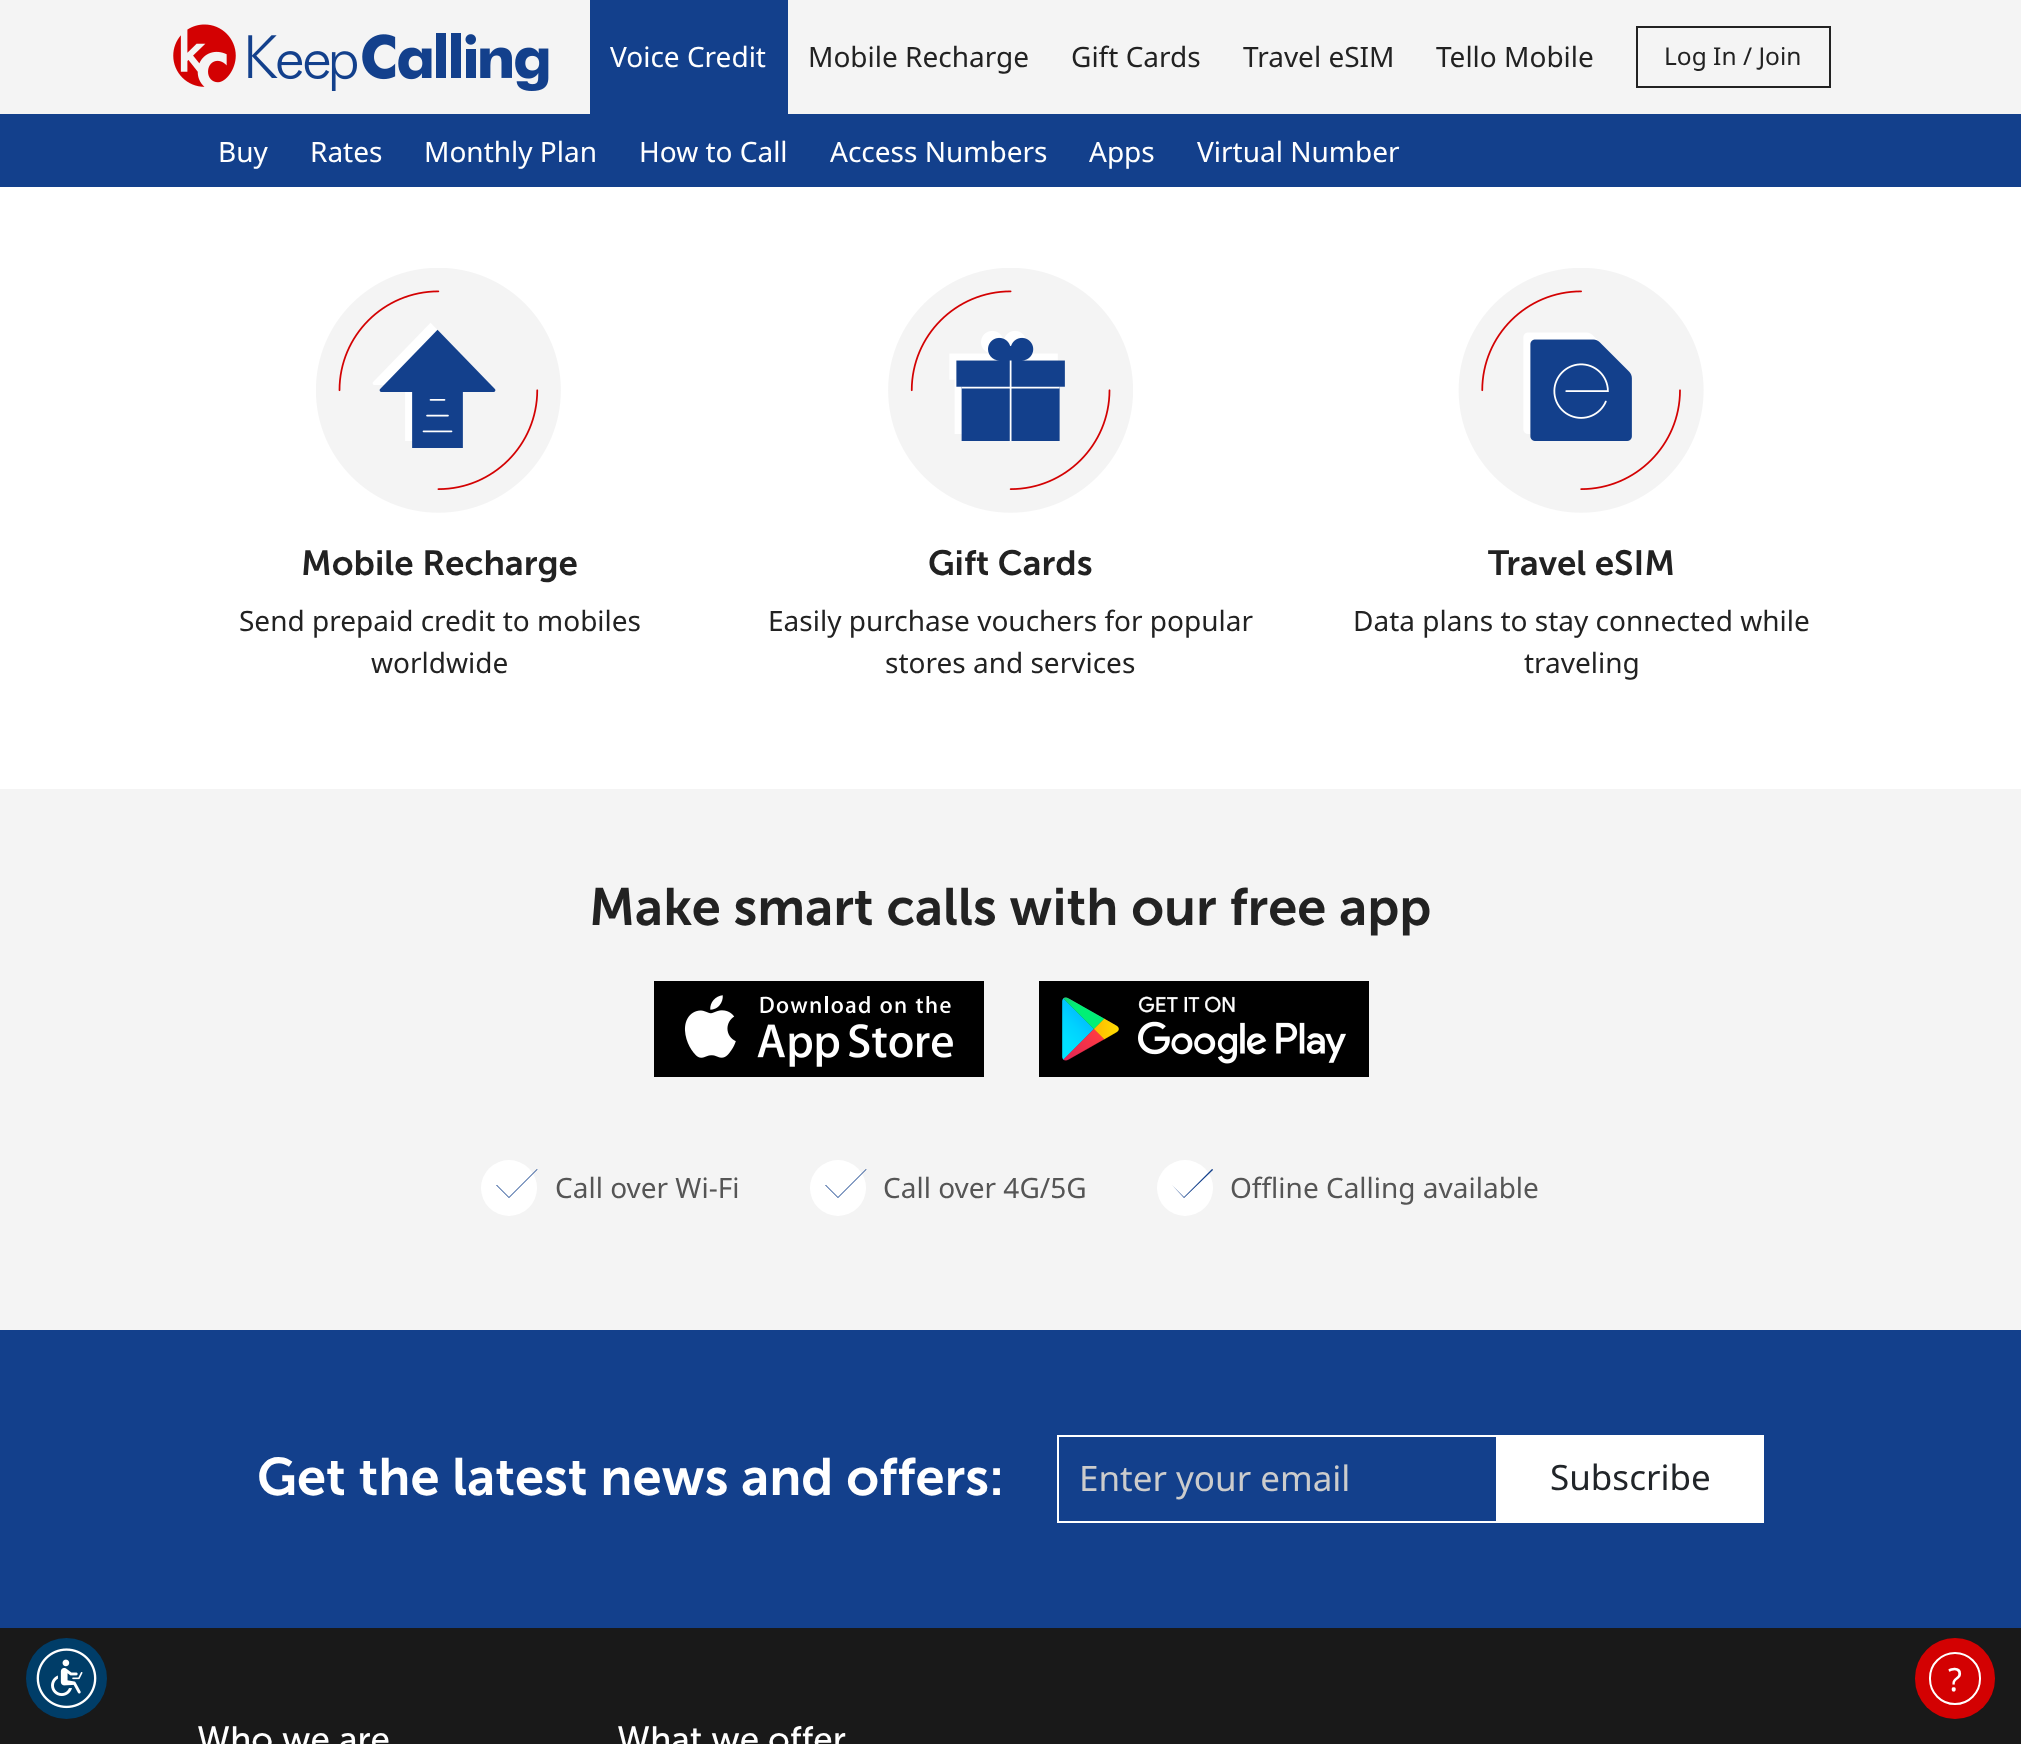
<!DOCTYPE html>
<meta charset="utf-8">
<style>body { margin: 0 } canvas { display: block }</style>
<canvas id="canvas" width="2021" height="1744"></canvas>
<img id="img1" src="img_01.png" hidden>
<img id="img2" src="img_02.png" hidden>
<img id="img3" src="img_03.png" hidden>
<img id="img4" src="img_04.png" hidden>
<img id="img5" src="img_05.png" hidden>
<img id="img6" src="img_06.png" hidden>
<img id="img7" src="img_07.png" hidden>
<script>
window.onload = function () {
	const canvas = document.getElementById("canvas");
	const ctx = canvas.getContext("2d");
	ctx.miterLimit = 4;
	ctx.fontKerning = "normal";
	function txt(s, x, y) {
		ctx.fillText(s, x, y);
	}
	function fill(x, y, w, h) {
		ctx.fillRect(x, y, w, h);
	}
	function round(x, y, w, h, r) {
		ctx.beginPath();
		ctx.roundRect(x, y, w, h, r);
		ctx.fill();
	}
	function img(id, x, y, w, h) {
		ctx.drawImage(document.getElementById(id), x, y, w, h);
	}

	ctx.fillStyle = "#FFFFFF";
	fill(0, 0, 2021, 1744);
	ctx.fillStyle = "#F4F4F4";
	fill(0, 0, 2021, 114);
	img("img1", 173, 24, 376, 67);
	ctx.fillStyle = "#13408C";
	fill(590, 0, 198, 114);
	ctx.strokeStyle = "#222222";
	ctx.lineWidth = 2;
	ctx.strokeRect(1637, 27, 193, 60);
	fill(0, 114, 2021, 65);
	fill(0, 179, 2021, 8);
	img("img2", 316, 268, 245, 245);
	img("img3", 888, 268, 245, 245);
	img("img4", 1458, 268, 246, 245);
	ctx.fillStyle = "#F4F4F4";
	fill(0, 789, 2021, 541);
	img("img5", 654, 981, 330, 96);
	img("img6", 1039, 981, 330, 96);
	ctx.fillStyle = "#FFFFFF";
	ctx.beginPath();
	ctx.arc(509, 1188, 28, 0, Math.PI * 2);
	ctx.fill();
	ctx.fillStyle = "#13408C";
	ctx.beginPath();
	ctx.moveTo(537, 1169);
	ctx.bezierCurveTo(537, 1169, 538, 1169, 537, 1170);
	ctx.lineTo(509, 1198);
	ctx.lineTo(496, 1185);
	ctx.lineTo(497, 1185);
	ctx.lineTo(509, 1197);
	ctx.closePath();
	ctx.fill();
	ctx.fillStyle = "#FFFFFF";
	ctx.beginPath();
	ctx.arc(838, 1188, 28, 0, Math.PI * 2);
	ctx.fill();
	ctx.fillStyle = "#13408C";
	ctx.beginPath();
	ctx.moveTo(866, 1169);
	ctx.bezierCurveTo(866, 1169, 867, 1169, 866, 1170);
	ctx.lineTo(838, 1198);
	ctx.lineTo(825, 1185);
	ctx.lineTo(826, 1185);
	ctx.lineTo(838, 1197);
	ctx.closePath();
	ctx.fill();
	ctx.fillStyle = "#FFFFFF";
	ctx.beginPath();
	ctx.arc(1185, 1188, 28, 0, Math.PI * 2);
	ctx.fill();
	ctx.fillStyle = "#13408C";
	ctx.beginPath();
	ctx.moveTo(1212, 1169);
	ctx.bezierCurveTo(1212, 1169, 1213, 1169, 1213, 1170);
	ctx.lineTo(1184, 1198);
	ctx.lineTo(1172, 1185);
	ctx.lineTo(1184, 1197);
	ctx.closePath();
	ctx.fill();
	fill(0, 1330, 2021, 298);
	ctx.strokeStyle = "#FFFFFF";
	ctx.strokeRect(1058, 1436, 439, 86);
	ctx.fillStyle = "#FFFFFF";
	fill(1498, 1435, 266, 88);
	ctx.fillStyle = "#191919";
	fill(0, 1628, 2021, 116);
	ctx.fillStyle = "#003D68";
	ctx.beginPath();
	ctx.arc(66.5, 1678.5, 40.5, 0, Math.PI * 2);
	ctx.fill();
	img("img7", 36, 1648, 61, 61);
	ctx.fillStyle = "#D30102";
	round(1915, 1638, 80, 81, 40);
	ctx.beginPath();
	ctx.roundRect(1930, 1653, 50, 51, 25);
	ctx.stroke();
	ctx.font = "28px Noto Sans";
	ctx.fillStyle = "#FFFFFF";
	txt("Voice Credit", 610, 67);
	ctx.fillStyle = "#222222";
	txt("Mobile Recharge", 808, 67);
	txt("Gift Cards", 1071, 67);
	txt("Travel eSIM", 1243, 67);
	txt("Tello Mobile", 1436, 67);
	ctx.font = "24.5px Noto Sans";
	txt("Log In / Join", 1664, 65);
	ctx.font = "28px Noto Sans";
	ctx.fillStyle = "#FFFFFF";
	txt("Buy", 218, 162);
	txt("Rates", 310, 162);
	txt("Monthly Plan", 424, 162);
	txt("How to Call", 639, 162);
	txt("Access Numbers", 830, 162);
	txt("Apps", 1089, 162);
	txt("Virtual Number", 1197, 162);
	ctx.font = "600 35px 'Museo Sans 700'";
	ctx.fillStyle = "#222222";
	txt("Mobile Recharge", 301, 575);
	ctx.font = "28px Noto Sans";
	txt("Send prepaid credit to mobiles", 239, 631);
	txt("worldwide", 371, 673);
	ctx.font = "600 35px 'Museo Sans 700'";
	txt("Gift Cards", 928, 575);
	ctx.font = "28px Noto Sans";
	txt("Easily purchase vouchers for popular", 768, 631);
	txt("stores and services", 885, 673);
	ctx.font = "600 35px 'Museo Sans 700'";
	txt("Travel eSIM", 1488, 575);
	ctx.font = "28px Noto Sans";
	txt("Data plans to stay connected while", 1353, 631);
	txt("traveling", 1524, 673);
	ctx.font = "600 52.5px 'Museo Sans 700'";
	txt("Make smart calls with our free app", 589, 925);
	ctx.font = "28px Noto Sans";
	ctx.fillStyle = "#555555";
	txt("Call over Wi-Fi", 555, 1198);
	txt("Call over 4G/5G", 883, 1198);
	txt("Offline Calling available", 1230, 1198);
	ctx.font = "600 52.5px 'Museo Sans 700'";
	ctx.fillStyle = "#FFFFFF";
	txt("Get the latest news and offers:", 257, 1495);
	ctx.font = "35px Noto Sans";
	ctx.fillStyle = "#CCCCCC";
	txt("Enter your email", 1079, 1491);
	ctx.fillStyle = "#212529";
	txt("Subscribe", 1550, 1490);
	ctx.font = "32px Noto Sans";
	ctx.fillStyle = "#FFFFFF";
	txt("?", 1948, 1691);
	ctx.font = "35px 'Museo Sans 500'";
	txt("Who we are", 197, 1751);
	txt("What we offer", 617, 1751);
};
</script>
